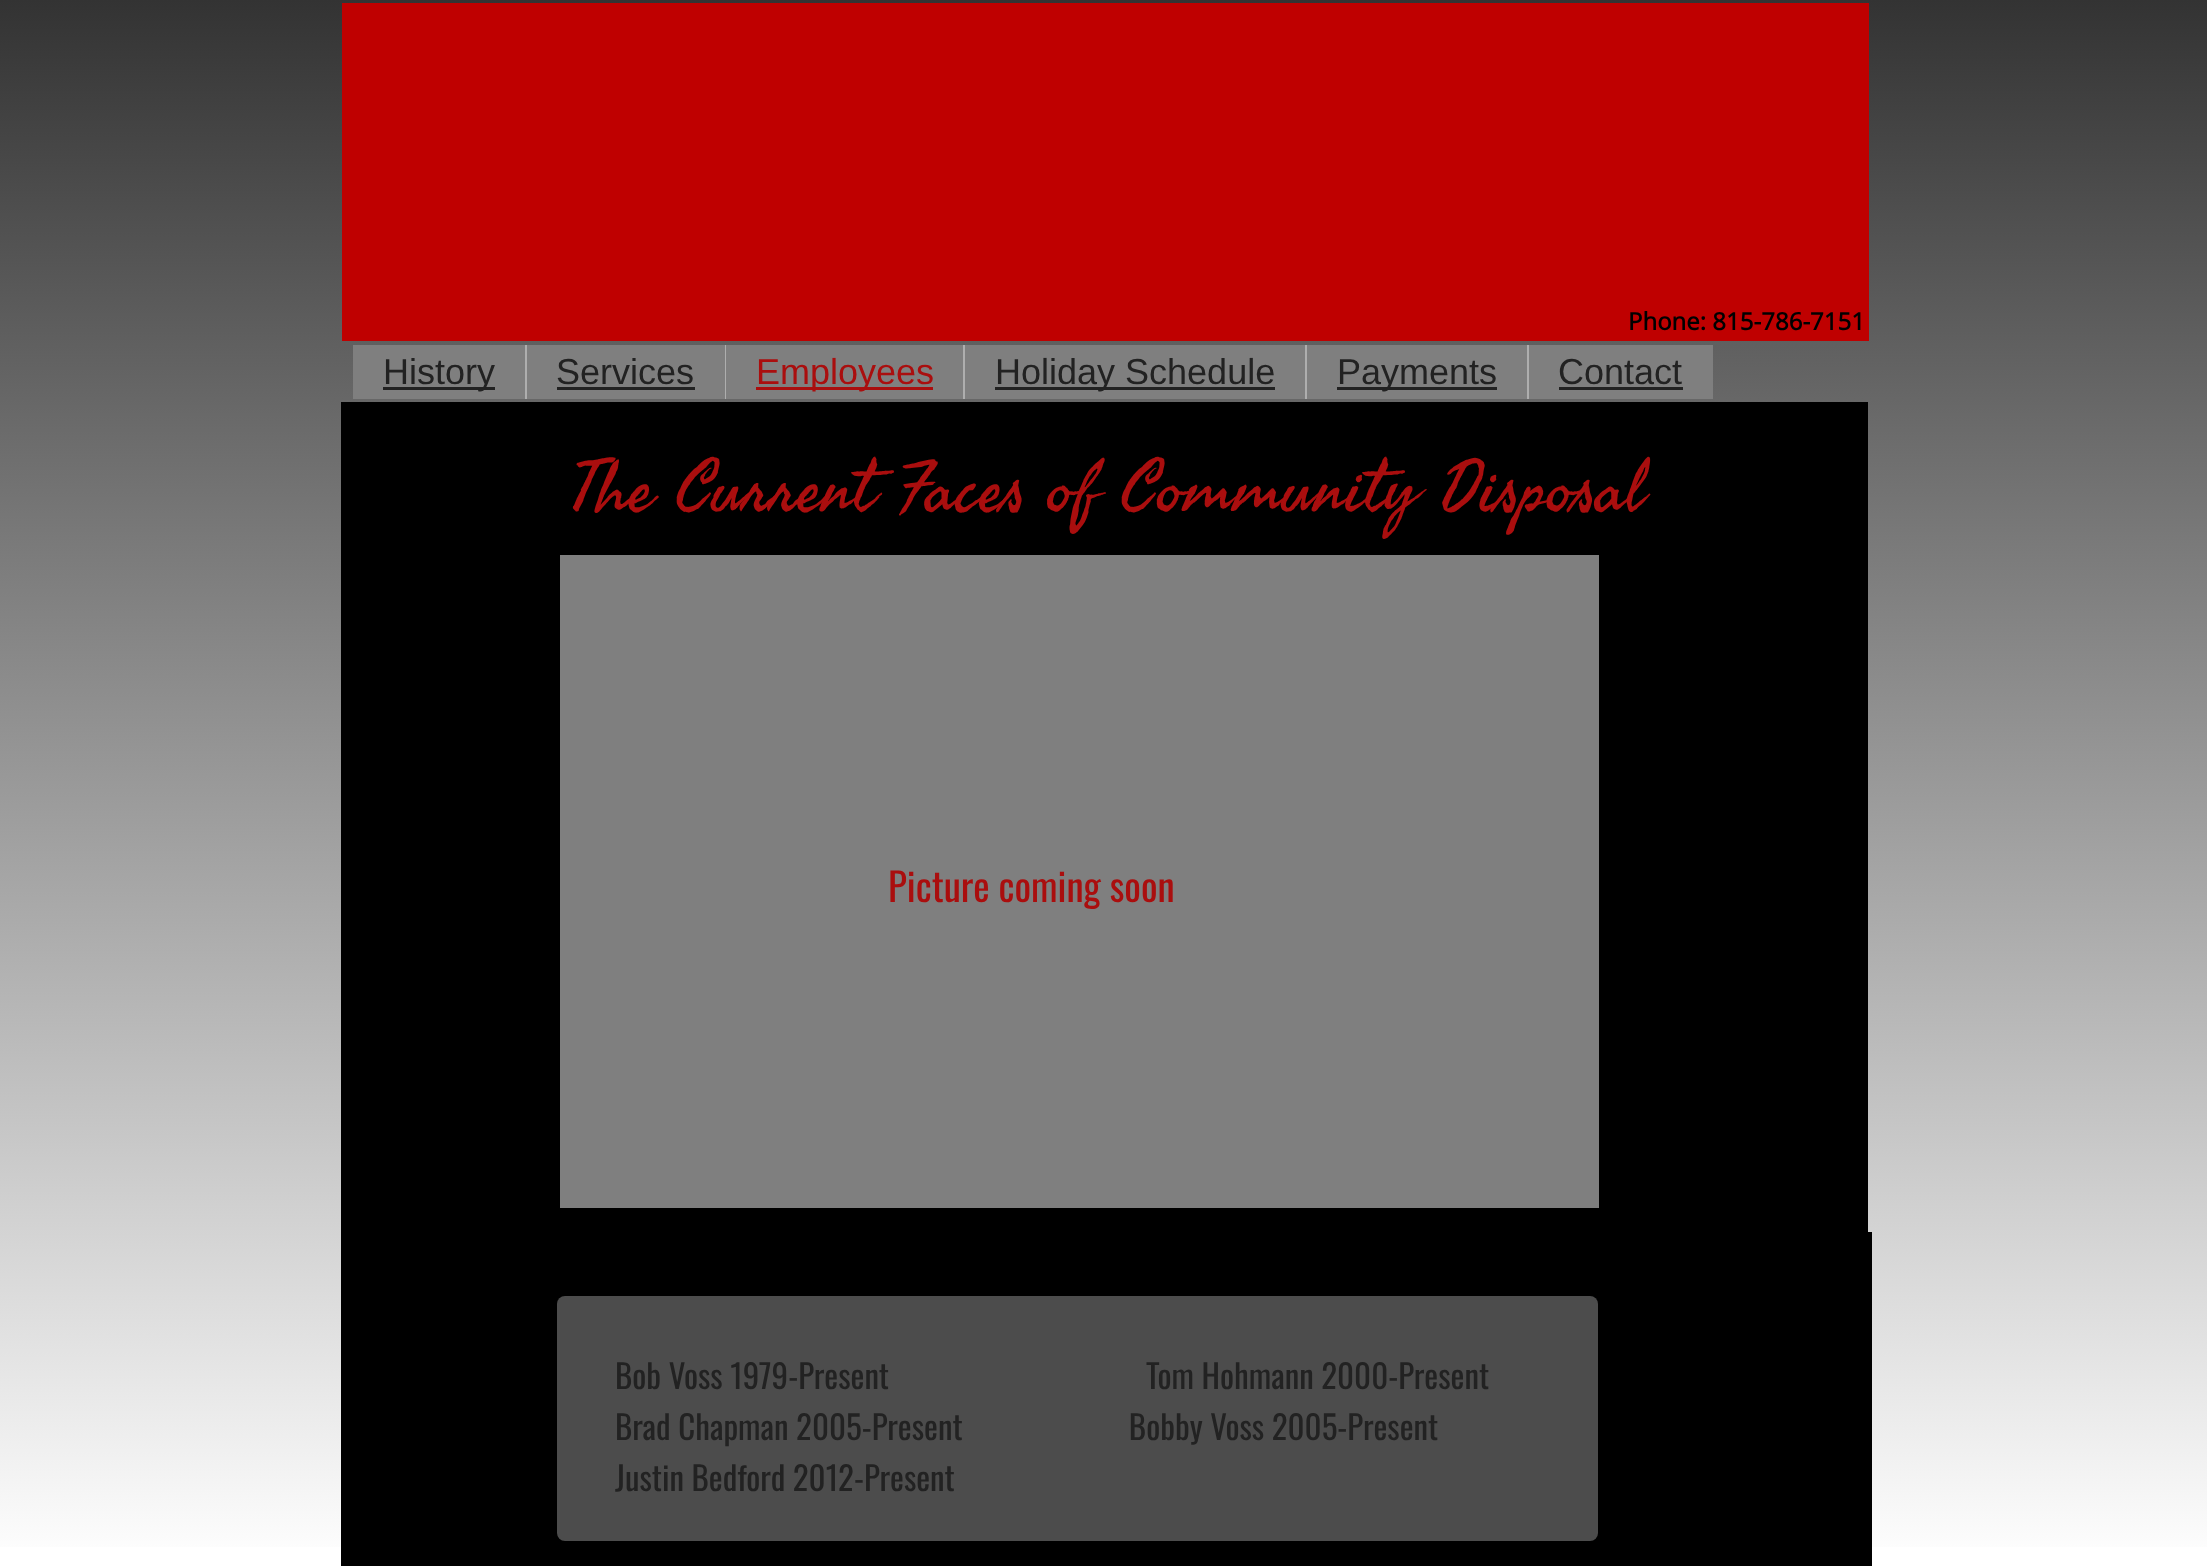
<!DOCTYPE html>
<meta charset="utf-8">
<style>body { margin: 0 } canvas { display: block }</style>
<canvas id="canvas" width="2207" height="1566"></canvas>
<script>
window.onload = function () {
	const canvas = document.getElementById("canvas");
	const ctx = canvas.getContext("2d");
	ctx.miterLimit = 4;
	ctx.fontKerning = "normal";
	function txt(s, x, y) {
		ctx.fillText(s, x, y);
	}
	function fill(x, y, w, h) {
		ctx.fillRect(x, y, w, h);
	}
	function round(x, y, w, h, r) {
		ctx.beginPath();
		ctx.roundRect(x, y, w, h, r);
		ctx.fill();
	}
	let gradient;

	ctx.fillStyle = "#FFFFFF";
	fill(0, 0, 2207, 1566);
	gradient = ctx.createLinearGradient(1104, 0, 1104, 1566);
	gradient.addColorStop(0, "#333333");
	gradient.addColorStop(1, "#FFFFFF");
	ctx.fillStyle = gradient;
	fill(0, 0, 2207, 1547);
	ctx.fillStyle = "#BF0000";
	fill(342, 3, 1527, 338);
	ctx.fillStyle = "#7F7F7F";
	fill(353, 345, 172, 54);
	ctx.fillStyle = "#AEAEAE";
	fill(525, 345, 2, 54);
	ctx.fillStyle = "#222222";
	fill(383, 387, 112, 3);
	ctx.fillStyle = "#7F7F7F";
	fill(527, 345, 198, 54);
	ctx.fillStyle = "#AEAEAE";
	fill(725, 345, 1, 54);
	ctx.fillStyle = "#222222";
	fill(557, 387, 138, 3);
	ctx.fillStyle = "#7F7F7F";
	fill(726, 345, 237, 54);
	ctx.fillStyle = "#AEAEAE";
	fill(963, 345, 2, 54);
	ctx.fillStyle = "#AA0E0E";
	fill(756, 387, 177, 3);
	ctx.fillStyle = "#7F7F7F";
	fill(965, 345, 340, 54);
	ctx.fillStyle = "#AEAEAE";
	fill(1305, 345, 2, 54);
	ctx.fillStyle = "#222222";
	fill(995, 387, 280, 3);
	ctx.fillStyle = "#7F7F7F";
	fill(1307, 345, 220, 54);
	ctx.fillStyle = "#AEAEAE";
	fill(1527, 345, 2, 54);
	ctx.fillStyle = "#222222";
	fill(1337, 387, 160, 3);
	ctx.fillStyle = "#7F7F7F";
	fill(1529, 345, 184, 54);
	ctx.fillStyle = "#222222";
	fill(1559, 387, 124, 3);
	ctx.fillStyle = "#000000";
	fill(341, 402, 1527, 1164);
	ctx.fillStyle = "#7F7F7F";
	fill(560, 555, 1039, 653);
	ctx.fillStyle = "#4C4C4C";
	round(557, 1296, 1041, 245, 8);
	ctx.fillStyle = "#000000";
	fill(1868, 1232, 4, 334);
	ctx.font = "bold 24px Open Sans";
	txt("Phone: 815-786-7151", 1628, 330);
	ctx.font = "36px Liberation Sans";
	ctx.fillStyle = "#222222";
	txt("History", 383, 384);
	txt("Services", 556, 384);
	ctx.fillStyle = "#AA0E0E";
	txt("Employees", 756, 384);
	ctx.fillStyle = "#222222";
	txt("Holiday Schedule", 995, 384);
	txt("Payments", 1337, 384);
	txt("Contact", 1558, 384);
	ctx.font = "72px Seaweed Script";
	ctx.fillStyle = "#AA0E0E";
	txt("The Current Faces of Community Disposal", 570, 510);
	ctx.font = "39px Oswald";
	txt("Picture coming soon", 888, 902);
	ctx.font = "33px Oswald";
	ctx.fillStyle = "#222222";
	txt("Bob Voss 1979-Present", 615, 1389);
	txt("Tom Hohmann 2000-Present", 1146, 1389);
	txt("Brad Chapman 2005-Present                      Bobby Voss 2005-Present", 615, 1440);
	txt("Justin Bedford 2012-Present", 615, 1491);
};
</script>
